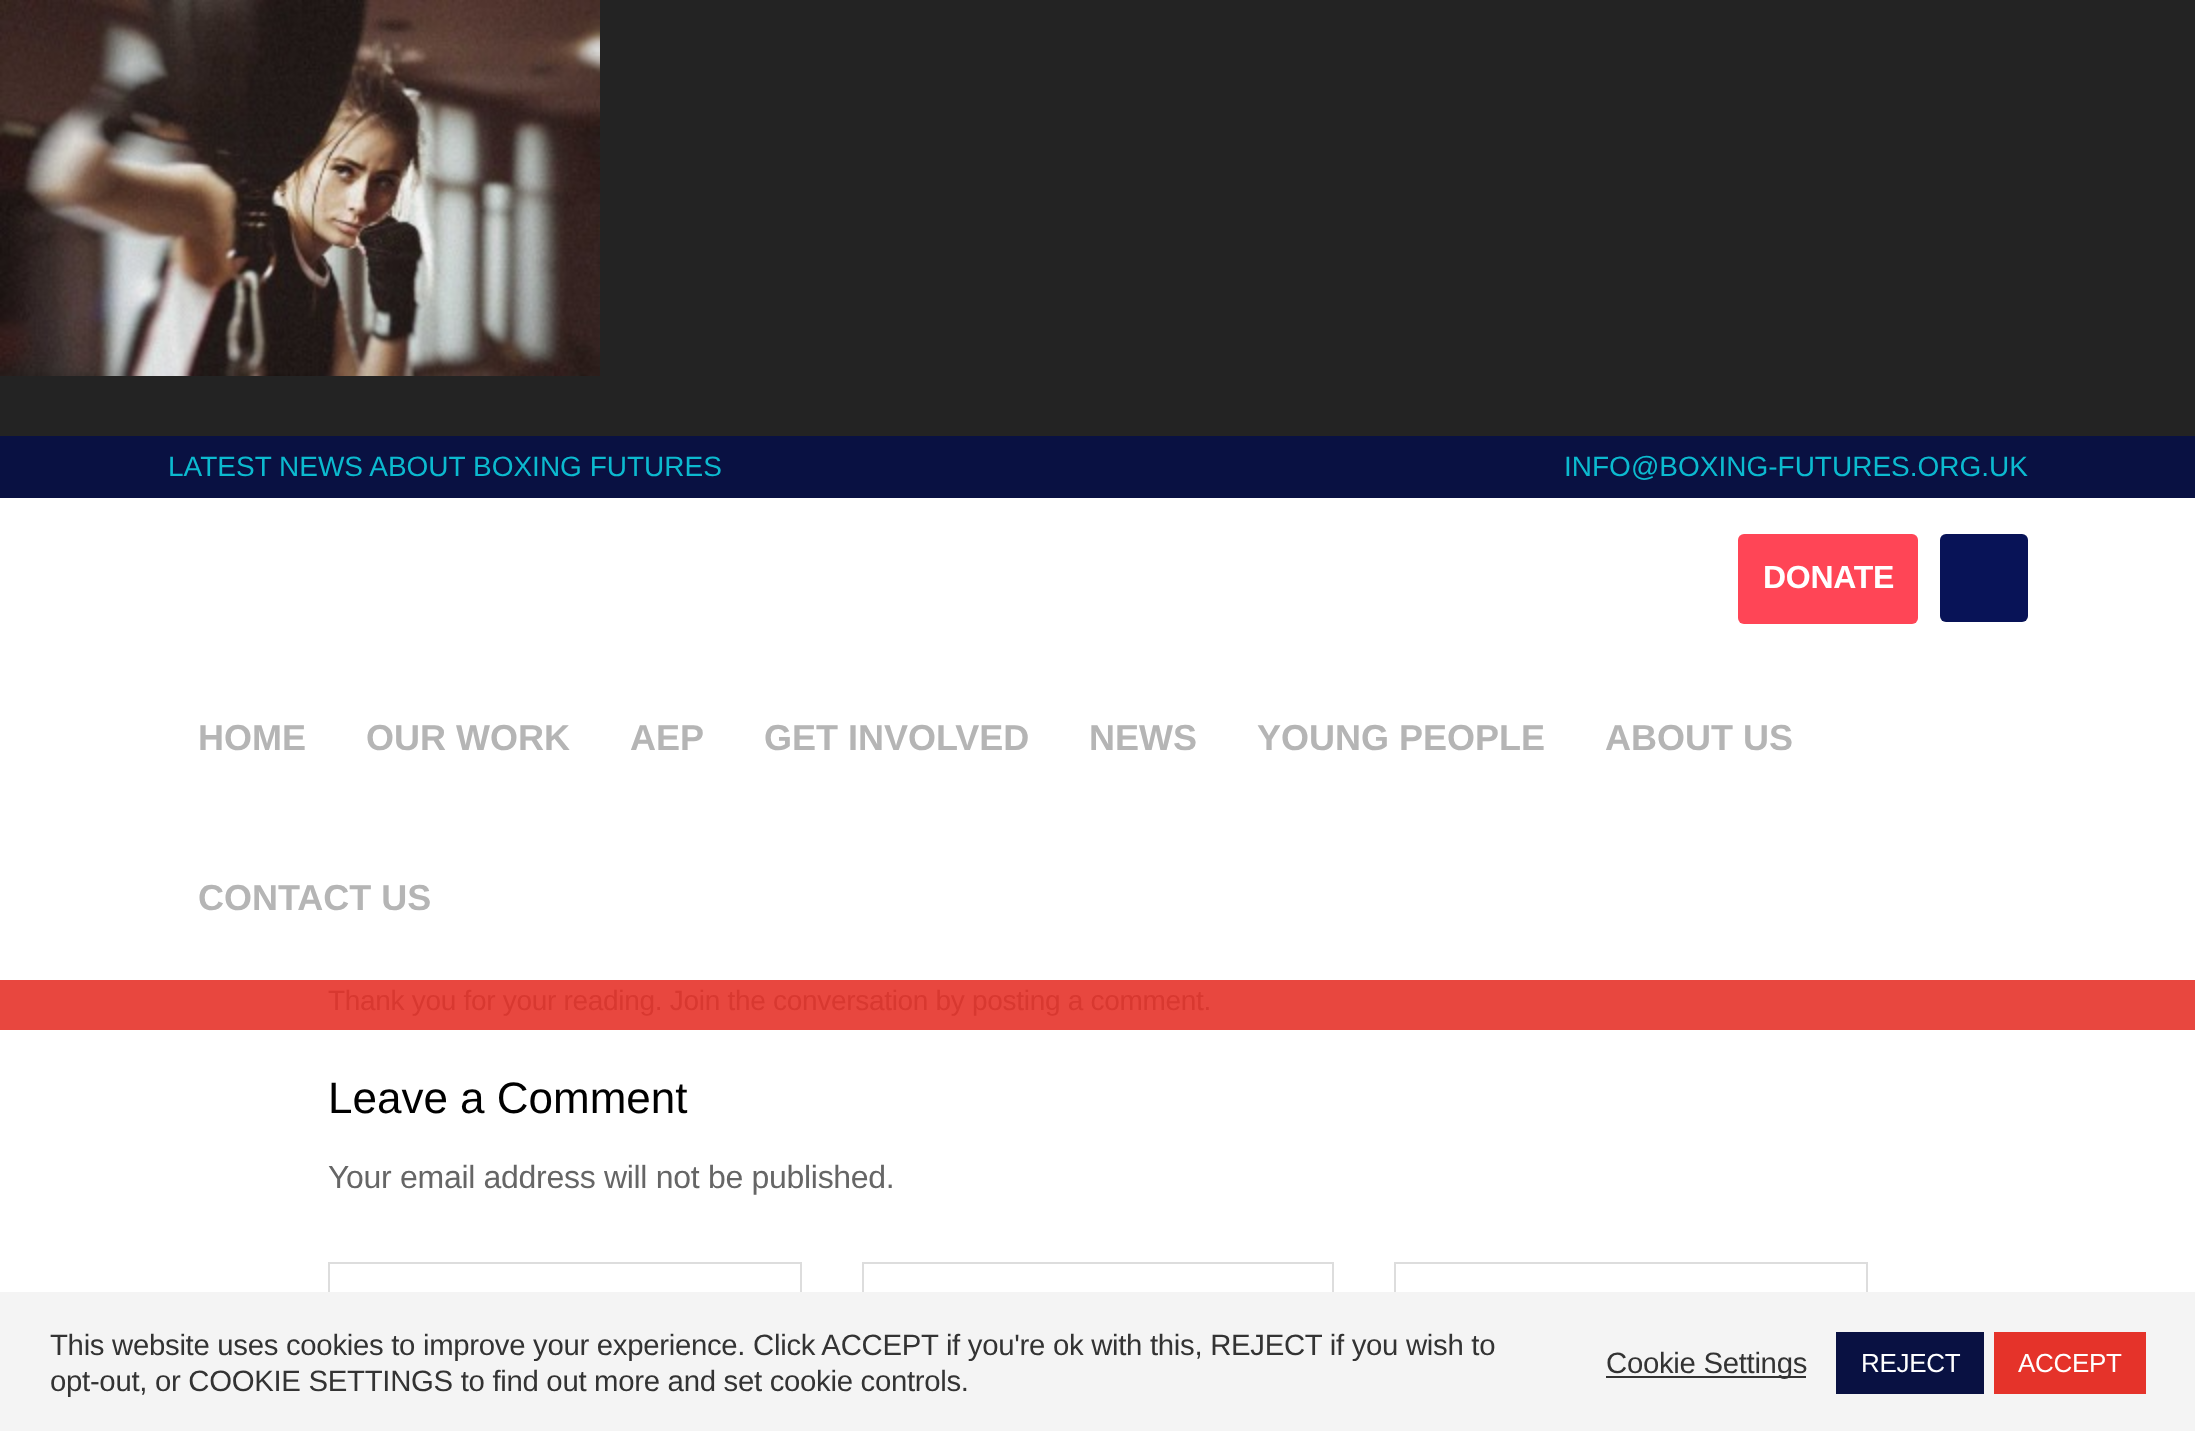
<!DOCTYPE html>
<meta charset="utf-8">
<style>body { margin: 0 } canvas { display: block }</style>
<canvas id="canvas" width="2195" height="1431"></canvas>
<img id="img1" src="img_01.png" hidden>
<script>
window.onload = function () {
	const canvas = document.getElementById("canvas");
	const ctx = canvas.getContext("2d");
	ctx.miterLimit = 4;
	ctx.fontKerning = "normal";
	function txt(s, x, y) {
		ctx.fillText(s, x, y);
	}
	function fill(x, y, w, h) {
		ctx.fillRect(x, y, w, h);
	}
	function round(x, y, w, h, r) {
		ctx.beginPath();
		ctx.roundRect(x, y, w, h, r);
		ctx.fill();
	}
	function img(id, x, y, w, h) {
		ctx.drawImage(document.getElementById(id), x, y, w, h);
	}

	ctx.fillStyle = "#FFFFFF";
	fill(0, 0, 2195, 1431);
	ctx.fillStyle = "#E8473F";
	fill(0, 980, 2195, 50);
	ctx.fillStyle = "#232323";
	fill(0, 0, 2195, 436);
	img("img1", 0, 0, 600, 376);
	ctx.fillStyle = "#091142";
	fill(0, 436, 2195, 62);
	ctx.fillStyle = "#FF4556";
	round(1738, 534, 180, 90, 6);
	ctx.fillStyle = "#081357";
	round(1940, 534, 88, 88, 6);
	ctx.strokeStyle = "#DDDDDD";
	ctx.lineWidth = 2;
	ctx.strokeRect(329, 1263, 472, 90);
	ctx.strokeRect(863, 1263, 470, 90);
	ctx.strokeRect(1395, 1263, 472, 90);
	ctx.fillStyle = "#F4F4F4";
	fill(0, 1292, 2195, 139);
	ctx.fillStyle = "#333333";
	fill(1606, 1376, 200, 2);
	ctx.fillStyle = "#091142";
	fill(1836, 1332, 148, 62);
	ctx.fillStyle = "#E5332A";
	fill(1994, 1332, 152, 62);
	ctx.font = "28px Liberation Sans";
	ctx.fillStyle = "#0CBACF";
	txt("LATEST NEWS ABOUT BOXING FUTURES", 168, 476);
	txt("INFO@BOXING-FUTURES.ORG.UK", 1564, 476);
	ctx.letterSpacing = "-0.3px";
	ctx.font = "bold 32px Liberation Sans";
	ctx.fillStyle = "#FFFFFF";
	txt("DONATE", 1763, 588);
	ctx.letterSpacing = "0px";
	ctx.font = "bold 36px Liberation Sans";
	ctx.fillStyle = "#B5B5B5";
	txt("HOME", 198, 750);
	txt("OUR WORK", 366, 750);
	txt("AEP", 630, 750);
	txt("GET INVOLVED", 764, 750);
	txt("NEWS", 1089, 750);
	txt("YOUNG PEOPLE", 1257, 750);
	txt("ABOUT US", 1605, 750);
	txt("CONTACT US", 198, 910);
	ctx.letterSpacing = "-0.3px";
	ctx.font = "28px Liberation Sans";
	ctx.fillStyle = "#D83830";
	txt("Thank you for your reading. Join the conversation by posting a comment.", 328, 1010);
	ctx.letterSpacing = "0px";
	ctx.font = "44px Liberation Sans";
	ctx.fillStyle = "#000000";
	txt("Leave a Comment", 328, 1113);
	ctx.letterSpacing = "-0.3px";
	ctx.font = "32px Liberation Sans";
	ctx.fillStyle = "#666666";
	txt("Your email address will not be published.", 328, 1188);
	ctx.font = "29.35px Liberation Sans";
	ctx.fillStyle = "#333333";
	txt("This website uses cookies to improve your experience. Click ACCEPT if you're ok with this, REJECT if you wish to", 50, 1355);
	txt("opt-out, or COOKIE SETTINGS to find out more and set cookie controls.", 50, 1391);
	txt("Cookie Settings", 1606, 1373);
	ctx.font = "26px Liberation Sans";
	ctx.fillStyle = "#FFFFFF";
	txt("REJECT", 1861, 1372);
	txt("ACCEPT", 2018, 1372);
};
</script>
